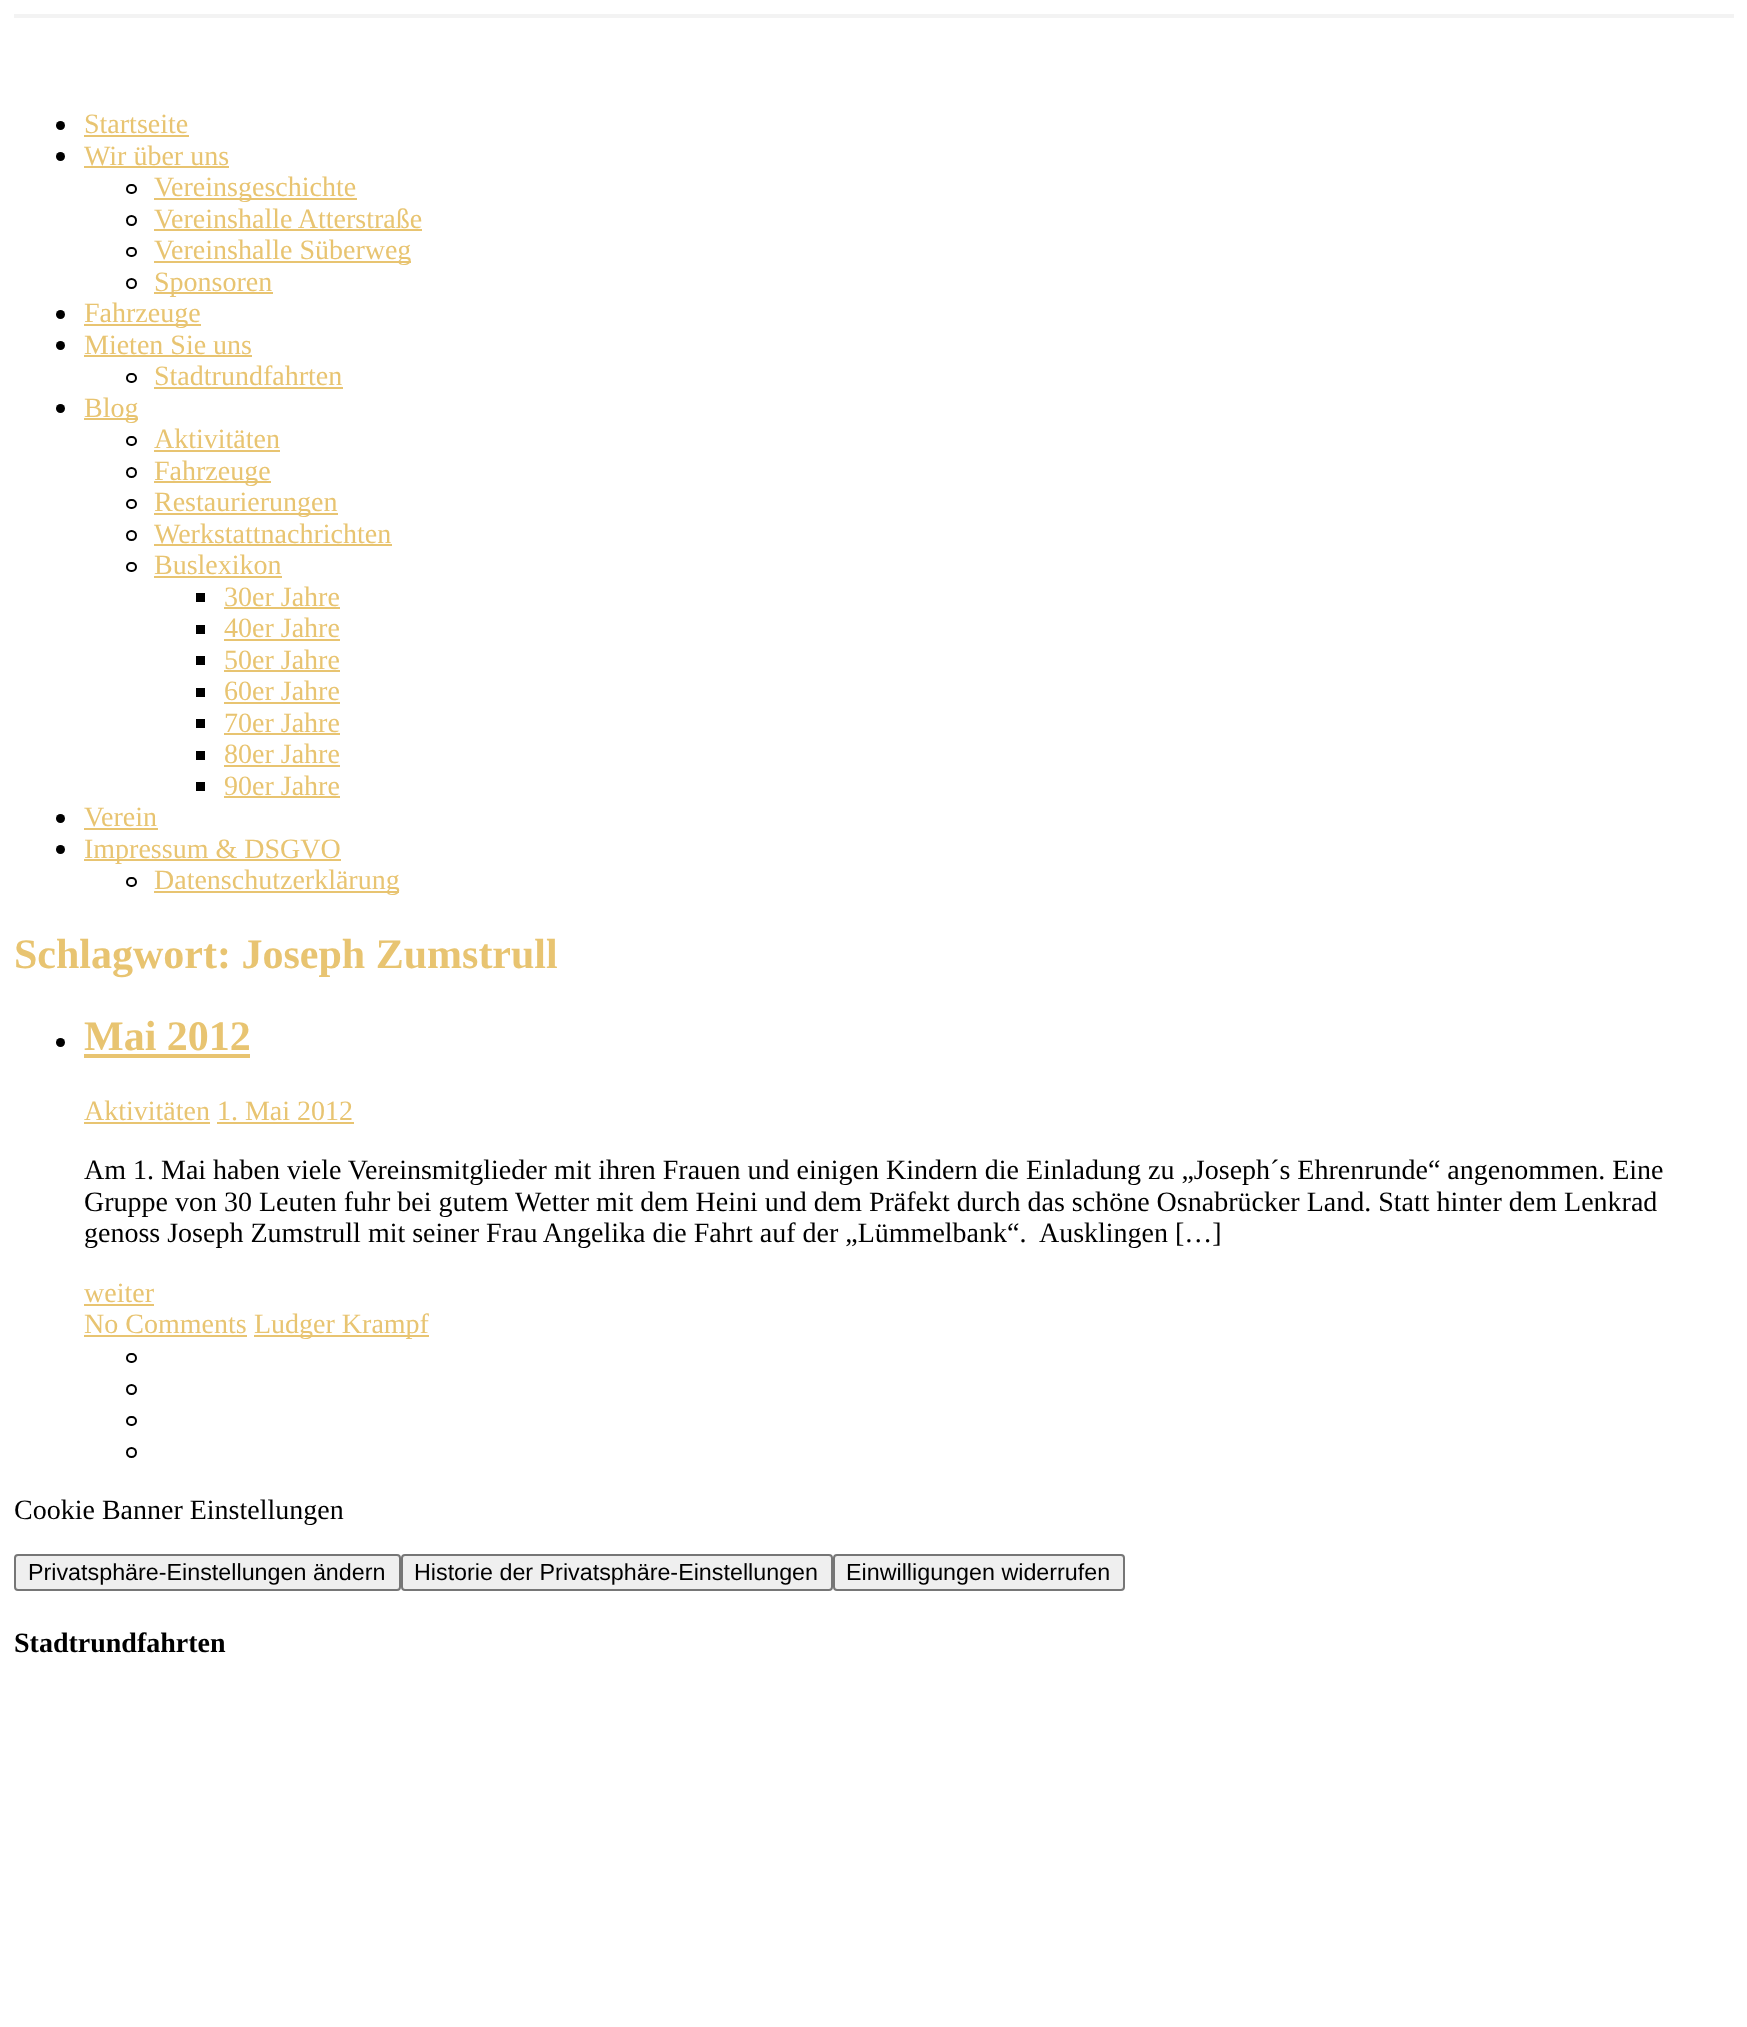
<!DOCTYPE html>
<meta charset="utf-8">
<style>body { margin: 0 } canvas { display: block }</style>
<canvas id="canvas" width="1747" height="2027"></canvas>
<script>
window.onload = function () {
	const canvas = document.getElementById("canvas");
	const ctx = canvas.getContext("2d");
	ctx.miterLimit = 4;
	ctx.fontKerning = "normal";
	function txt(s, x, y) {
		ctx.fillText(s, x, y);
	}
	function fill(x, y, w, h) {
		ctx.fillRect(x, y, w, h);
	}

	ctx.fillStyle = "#FFFFFF";
	fill(0, 0, 1747, 2027);
	ctx.fillStyle = "#F3F3F3";
	fill(14, 14, 1720, 4);
	ctx.fillStyle = "#000000";
	ctx.beginPath();
	ctx.arc(60.5, 125.5, 4.5, 0, Math.PI * 2);
	ctx.fill();
	ctx.fillStyle = "#E8C471";
	fill(84, 135, 105, 2);
	ctx.fillStyle = "#000000";
	ctx.beginPath();
	ctx.arc(60.5, 156.5, 4.5, 0, Math.PI * 2);
	ctx.fill();
	ctx.fillStyle = "#E8C471";
	fill(84, 166, 145, 2);
	ctx.beginPath();
	ctx.roundRect(127, 185, 9, 8, 4);
	ctx.strokeStyle = "#000000";
	ctx.lineWidth = 2;
	ctx.stroke();
	fill(154, 198, 203, 2);
	ctx.beginPath();
	ctx.arc(131.5, 220.5, 4.5, 0, Math.PI * 2);
	ctx.stroke();
	fill(154, 229, 268, 2);
	ctx.beginPath();
	ctx.roundRect(127, 248, 9, 8, 4);
	ctx.stroke();
	fill(154, 261, 257, 2);
	ctx.beginPath();
	ctx.arc(131.5, 283.5, 4.5, 0, Math.PI * 2);
	ctx.stroke();
	fill(154, 292, 119, 2);
	ctx.fillStyle = "#000000";
	ctx.beginPath();
	ctx.arc(60.5, 314.5, 4.5, 0, Math.PI * 2);
	ctx.fill();
	ctx.fillStyle = "#E8C471";
	fill(84, 324, 117, 2);
	ctx.fillStyle = "#000000";
	ctx.beginPath();
	ctx.arc(60.5, 345.5, 4.5, 0, Math.PI * 2);
	ctx.fill();
	ctx.fillStyle = "#E8C471";
	fill(84, 355, 168, 2);
	ctx.beginPath();
	ctx.roundRect(127, 374, 9, 8, 4);
	ctx.stroke();
	fill(154, 387, 189, 2);
	ctx.fillStyle = "#000000";
	ctx.beginPath();
	ctx.arc(60.5, 408.5, 4.5, 0, Math.PI * 2);
	ctx.fill();
	ctx.fillStyle = "#E8C471";
	fill(84, 418, 54, 2);
	ctx.beginPath();
	ctx.roundRect(127, 437, 9, 8, 4);
	ctx.stroke();
	fill(154, 450, 126, 2);
	ctx.beginPath();
	ctx.arc(131.5, 472.5, 4.5, 0, Math.PI * 2);
	ctx.stroke();
	fill(154, 481, 117, 2);
	ctx.beginPath();
	ctx.roundRect(127, 500, 9, 8, 4);
	ctx.stroke();
	fill(154, 513, 184, 2);
	ctx.beginPath();
	ctx.arc(131.5, 535.5, 4.5, 0, Math.PI * 2);
	ctx.stroke();
	fill(154, 544, 238, 2);
	ctx.beginPath();
	ctx.roundRect(127, 563, 9, 8, 4);
	ctx.stroke();
	fill(154, 576, 128, 2);
	ctx.fillStyle = "#000000";
	fill(196, 593, 9, 9);
	ctx.fillStyle = "#E8C471";
	fill(224, 607, 116, 2);
	ctx.fillStyle = "#000000";
	fill(196, 625, 9, 9);
	ctx.fillStyle = "#E8C471";
	fill(224, 639, 116, 2);
	ctx.fillStyle = "#000000";
	fill(196, 656, 9, 9);
	ctx.fillStyle = "#E8C471";
	fill(224, 670, 116, 2);
	ctx.fillStyle = "#000000";
	fill(196, 688, 9, 9);
	ctx.fillStyle = "#E8C471";
	fill(224, 702, 116, 2);
	ctx.fillStyle = "#000000";
	fill(196, 719, 9, 9);
	ctx.fillStyle = "#E8C471";
	fill(224, 733, 116, 2);
	ctx.fillStyle = "#000000";
	fill(196, 751, 9, 9);
	ctx.fillStyle = "#E8C471";
	fill(224, 765, 116, 2);
	ctx.fillStyle = "#000000";
	fill(196, 782, 9, 9);
	ctx.fillStyle = "#E8C471";
	fill(224, 796, 116, 2);
	ctx.fillStyle = "#000000";
	ctx.beginPath();
	ctx.arc(60.5, 818.5, 4.5, 0, Math.PI * 2);
	ctx.fill();
	ctx.fillStyle = "#E8C471";
	fill(84, 828, 74, 2);
	ctx.fillStyle = "#000000";
	ctx.beginPath();
	ctx.arc(60.5, 849.5, 4.5, 0, Math.PI * 2);
	ctx.fill();
	ctx.fillStyle = "#E8C471";
	fill(84, 859, 257, 2);
	ctx.beginPath();
	ctx.roundRect(127, 878, 9, 8, 4);
	ctx.stroke();
	fill(154, 891, 245, 2);
	ctx.fillStyle = "#000000";
	ctx.beginPath();
	ctx.arc(60.5, 1042.5, 4.5, 0, Math.PI * 2);
	ctx.fill();
	ctx.fillStyle = "#E8C471";
	fill(84, 1054, 166, 4);
	fill(84, 1122, 126, 2);
	fill(217, 1122, 137, 2);
	fill(84, 1304, 70, 2);
	fill(84, 1335, 163, 2);
	fill(254, 1335, 175, 2);
	ctx.beginPath();
	ctx.roundRect(127, 1354, 9, 8, 4);
	ctx.stroke();
	ctx.beginPath();
	ctx.arc(131.5, 1389.5, 4.5, 0, Math.PI * 2);
	ctx.stroke();
	ctx.beginPath();
	ctx.roundRect(127, 1417, 9, 8, 4);
	ctx.stroke();
	ctx.beginPath();
	ctx.arc(131.5, 1452.5, 4.5, 0, Math.PI * 2);
	ctx.stroke();
	ctx.fillStyle = "#EFEFEF";
	ctx.beginPath();
	ctx.roundRect(15, 1555, 385, 35, 3);
	ctx.fill();
	ctx.strokeStyle = "#767676";
	ctx.stroke();
	ctx.beginPath();
	ctx.roundRect(402, 1555, 430, 35, 3);
	ctx.fill();
	ctx.stroke();
	ctx.beginPath();
	ctx.roundRect(834, 1555, 290, 35, 3);
	ctx.fill();
	ctx.stroke();
	ctx.font = "28px Liberation Serif";
	ctx.fillStyle = "#E8C471";
	txt("Startseite", 84, 133);
	txt("Wir über uns", 84, 165);
	txt("Vereinsgeschichte", 154, 196);
	txt("Vereinshalle Atterstraße", 154, 228);
	txt("Vereinshalle Süberweg", 154, 259);
	txt("Sponsoren", 154, 291);
	txt("Fahrzeuge", 84, 322);
	txt("Mieten Sie uns", 84, 354);
	txt("Stadtrundfahrten", 154, 385);
	txt("Blog", 84, 417);
	txt("Aktivitäten", 154, 448);
	txt("Fahrzeuge", 154, 480);
	txt("Restaurierungen", 154, 511);
	txt("Werkstattnachrichten", 154, 543);
	txt("Buslexikon", 154, 574);
	txt("30er Jahre", 224, 606);
	txt("40er Jahre", 224, 637);
	txt("50er Jahre", 224, 669);
	txt("60er Jahre", 224, 700);
	txt("70er Jahre", 224, 732);
	txt("80er Jahre", 224, 763);
	txt("90er Jahre", 224, 795);
	txt("Verein", 84, 826);
	txt("Impressum & DSGVO", 84, 858);
	txt("Datenschutzerklärung", 154, 889);
	ctx.font = "bold 42px Liberation Serif";
	txt("Schlagwort: Joseph Zumstrull", 14, 968);
	txt("Mai 2012", 84, 1050);
	ctx.font = "28px Liberation Serif";
	txt("Aktivitäten 1. Mai 2012", 84, 1120);
	ctx.fillStyle = "#000000";
	txt("Am 1. Mai haben viele Vereinsmitglieder mit ihren Frauen und einigen Kindern die Einladung zu „Joseph´s Ehrenrunde“ angenommen. Eine", 84, 1179);
	txt("Gruppe von 30 Leuten fuhr bei gutem Wetter mit dem Heini und dem Präfekt durch das schöne Osnabrücker Land. Statt hinter dem Lenkrad", 84, 1211);
	txt("genoss Joseph Zumstrull mit seiner Frau Angelika die Fahrt auf der „Lümmelbank“.  Ausklingen […]", 84, 1242);
	ctx.fillStyle = "#E8C471";
	txt("weiter", 84, 1302);
	txt("No Comments", 84, 1333);
	txt("Ludger Krampf", 254, 1333);
	ctx.fillStyle = "#000000";
	txt("Cookie Banner Einstellungen", 14, 1519);
	ctx.font = "23.3px Liberation Sans";
	txt("Privatsphäre-Einstellungen ändern", 28, 1580);
	txt("Historie der Privatsphäre-Einstellungen", 414, 1580);
	txt("Einwilligungen widerrufen", 846, 1580);
	ctx.font = "bold 28px Liberation Serif";
	txt("Stadtrundfahrten", 14, 1652);
};
</script>
